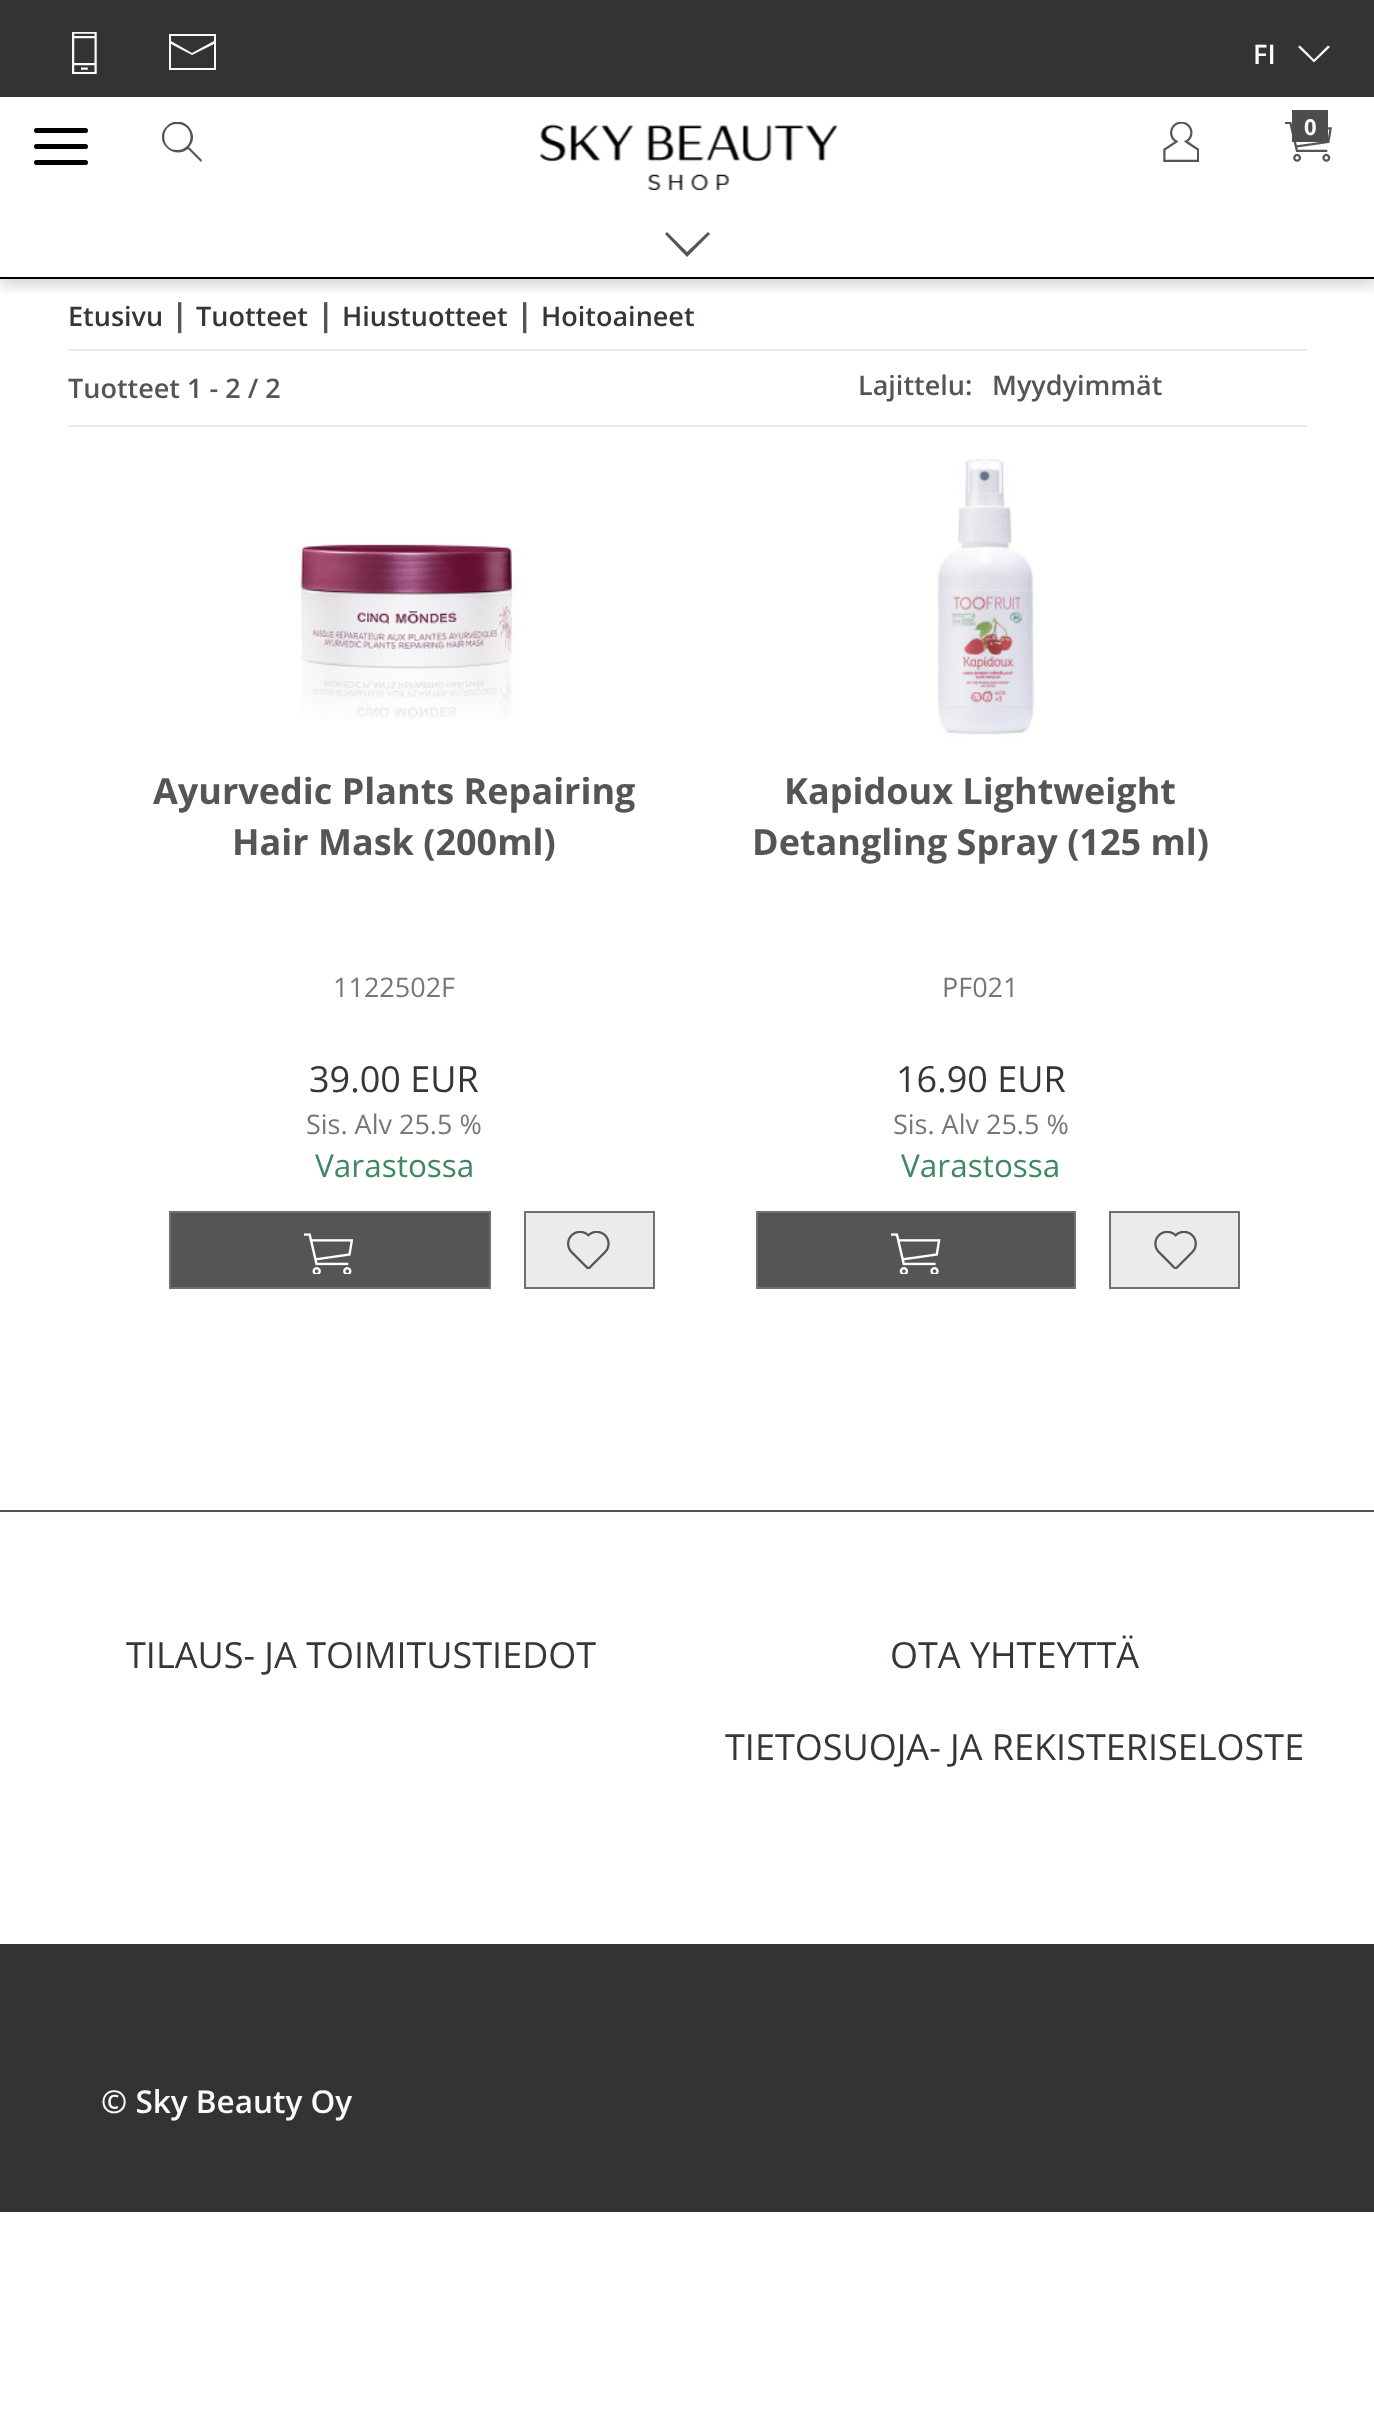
<!DOCTYPE html>
<meta charset="utf-8">
<style>body { margin: 0 } canvas { display: block }</style>
<canvas id="canvas" width="1374" height="2429"></canvas>
<img id="img1" src="img_01.png" hidden>
<img id="img2" src="img_02.png" hidden>
<img id="img3" src="img_03.png" hidden>
<img id="img4" src="img_04.png" hidden>
<img id="img5" src="img_05.png" hidden>
<img id="img6" src="img_06.png" hidden>
<img id="img7" src="img_07.png" hidden>
<img id="img8" src="img_08.png" hidden>
<img id="img9" src="img_09.png" hidden>
<img id="img10" src="img_10.png" hidden>
<script>
window.onload = function () {
	const canvas = document.getElementById("canvas");
	const ctx = canvas.getContext("2d");
	ctx.miterLimit = 4;
	ctx.fontKerning = "normal";
	function txt(s, x, y) {
		ctx.fillText(s, x, y);
	}
	function fill(x, y, w, h) {
		ctx.fillRect(x, y, w, h);
	}
	function round(x, y, w, h, r) {
		ctx.beginPath();
		ctx.roundRect(x, y, w, h, r);
		ctx.fill();
	}
	function img(id, x, y, w, h) {
		ctx.drawImage(document.getElementById(id), x, y, w, h);
	}

	ctx.fillStyle = "#FFFFFF";
	fill(0, 0, 1374, 2429);
	ctx.save();
	ctx.beginPath();
	ctx.rect(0, 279, 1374, 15);
	ctx.clip();
	ctx.fillStyle = "rgba(0, 0, 0, 0.16)";
	ctx.filter = "blur(7px)";
	ctx.beginPath();
	ctx.rect(0, 7, 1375, 279);
	ctx.fill();
	ctx.filter = "none";
	ctx.restore();
	ctx.fillStyle = "#000000";
	fill(0, 277, 1374, 2);
	ctx.fillStyle = "#333333";
	fill(0, 0, 1374, 97);
	img("img1", 72, 32, 25, 42);
	ctx.fillStyle = "#FAFAFA";
	ctx.beginPath();
	ctx.moveTo(169, 34);
	ctx.lineTo(169, 70);
	ctx.lineTo(216, 70);
	ctx.lineTo(216, 34);
	ctx.closePath();
	ctx.moveTo(214, 68);
	ctx.lineTo(171, 68);
	ctx.lineTo(171, 44);
	ctx.lineTo(192, 55);
	ctx.lineTo(214, 44);
	ctx.closePath();
	ctx.moveTo(214, 41);
	ctx.lineTo(192, 53);
	ctx.lineTo(171, 41);
	ctx.lineTo(171, 36);
	ctx.lineTo(214, 36);
	ctx.closePath();
	ctx.fill();
	ctx.beginPath();
	ctx.moveTo(1330, 47);
	ctx.lineTo(1314, 62.5);
	ctx.lineTo(1298, 47);
	ctx.lineTo(1300, 45.5);
	ctx.lineTo(1314, 59.5);
	ctx.lineTo(1328, 45.5);
	ctx.closePath();
	ctx.fill();
	ctx.fillStyle = "#000000";
	round(34, 144, 54, 5, 2.5);
	round(34, 128, 54, 5, 2.5);
	round(34, 160, 54, 5, 2.5);
	ctx.save();
	ctx.beginPath();
	ctx.rect(162, 122, 41, 40);
	ctx.clip();
	ctx.fillStyle = "#555555";
	ctx.beginPath();
	ctx.moveTo(189, 147);
	ctx.bezierCurveTo(202, 133, 181, 112, 167, 126);
	ctx.bezierCurveTo(152, 140, 173, 161, 188, 149);
	ctx.lineTo(201, 162);
	ctx.lineTo(202, 160);
	ctx.closePath();
	ctx.moveTo(177, 150);
	ctx.bezierCurveTo(160, 150, 160, 124, 177, 124);
	ctx.bezierCurveTo(195, 124, 195, 150, 177, 150);
	ctx.closePath();
	ctx.fill();
	ctx.restore();
	img("img2", 539, 124, 299, 67);
	img("img3", 1163, 122, 36, 40);
	img("img4", 1285, 122, 47, 40);
	ctx.fillStyle = "#4D4D4D";
	fill(1292, 110, 36, 32);
	ctx.fillStyle = "#555555";
	ctx.beginPath();
	ctx.moveTo(710, 234);
	ctx.lineTo(687, 257);
	ctx.lineTo(665, 234);
	ctx.lineTo(667, 232);
	ctx.lineTo(687, 252);
	ctx.lineTo(708, 232);
	ctx.closePath();
	ctx.fill();
	ctx.fillStyle = "#EBEBEB";
	fill(68, 349, 1239, 2);
	fill(68, 425, 1239, 2);
	img("img5", 295, 537, 226, 183);
	ctx.fillStyle = "#555555";
	ctx.beginPath();
	ctx.rect(170, 1212, 320, 76);
	ctx.fill();
	ctx.strokeStyle = "#707070";
	ctx.lineWidth = 2;
	ctx.stroke();
	img("img6", 304, 1233, 49, 41);
	ctx.fillStyle = "#EBEBEB";
	ctx.beginPath();
	ctx.rect(525, 1212, 129, 76);
	ctx.fill();
	ctx.stroke();
	img("img7", 567, 1231, 43, 38);
	img("img8", 937, 458, 98, 281);
	ctx.fillStyle = "#555555";
	ctx.beginPath();
	ctx.rect(757, 1212, 318, 76);
	ctx.fill();
	ctx.stroke();
	img("img9", 891, 1233, 50, 41);
	ctx.fillStyle = "#EBEBEB";
	ctx.beginPath();
	ctx.rect(1110, 1212, 129, 76);
	ctx.fill();
	ctx.stroke();
	img("img10", 1154, 1231, 43, 38);
	ctx.fillStyle = "#555555";
	fill(0, 1510, 1374, 2);
	ctx.fillStyle = "#333333";
	fill(0, 1944, 1374, 268);
	ctx.font = "600 27px Open Sans";
	ctx.fillStyle = "#FAFAFA";
	txt("FI", 1253, 64);
	ctx.font = "bold 22px Open Sans";
	txt("0", 1304, 135);
	ctx.font = "600 27px Open Sans";
	ctx.fillStyle = "#343737";
	txt("Etusivu", 68, 326);
	ctx.font = "bold 31.5px Open Sans";
	ctx.fillStyle = "#555555";
	txt("|", 171, 326);
	ctx.font = "600 27px Open Sans";
	ctx.fillStyle = "#343737";
	txt("Tuotteet", 196, 326);
	ctx.font = "bold 31.5px Open Sans";
	ctx.fillStyle = "#555555";
	txt("|", 317, 326);
	ctx.font = "600 27px Open Sans";
	ctx.fillStyle = "#343737";
	txt("Hiustuotteet", 342, 326);
	ctx.font = "bold 31.5px Open Sans";
	ctx.fillStyle = "#555555";
	txt("|", 516, 326);
	ctx.font = "600 27px Open Sans";
	ctx.fillStyle = "#343737";
	txt("Hoitoaineet", 541, 326);
	ctx.fillStyle = "#555555";
	txt("Tuotteet 1 - 2 / 2", 68, 398);
	txt("Lajittelu:", 858, 395);
	txt("Myydyimmät", 992, 395);
	ctx.font = "bold 36px Open Sans";
	txt("Ayurvedic Plants Repairing", 153, 804);
	txt("Hair Mask (200ml)", 232, 855);
	ctx.font = "27px Open Sans";
	ctx.fillStyle = "#777777";
	txt("1122502F", 333, 997);
	ctx.font = "36px Open Sans";
	ctx.fillStyle = "#343737";
	txt("39.00 EUR", 309, 1092);
	ctx.font = "27px Open Sans";
	ctx.fillStyle = "#777777";
	txt("Sis. Alv 25.5 %", 306, 1134);
	ctx.font = "31.5px Open Sans";
	ctx.fillStyle = "#408860";
	txt("Varastossa", 315, 1177);
	ctx.font = "bold 36px Open Sans";
	ctx.fillStyle = "#555555";
	txt("Kapidoux Lightweight", 784, 804);
	txt("Detangling Spray (125 ml)", 752, 855);
	ctx.font = "27px Open Sans";
	ctx.fillStyle = "#777777";
	txt("PF021", 942, 997);
	ctx.font = "36px Open Sans";
	ctx.fillStyle = "#343737";
	txt("16.90 EUR", 896, 1092);
	ctx.font = "27px Open Sans";
	ctx.fillStyle = "#777777";
	txt("Sis. Alv 25.5 %", 893, 1134);
	ctx.font = "31.5px Open Sans";
	ctx.fillStyle = "#408860";
	txt("Varastossa", 901, 1177);
	ctx.font = "36px Open Sans";
	ctx.fillStyle = "#343737";
	txt("TILAUS- JA TOIMITUSTIEDOT", 126, 1668);
	txt("OTA YHTEYTTÄ", 890, 1668);
	txt("TIETOSUOJA- JA REKISTERISELOSTE", 725, 1760);
	ctx.font = "600 31.5px Open Sans";
	ctx.fillStyle = "#FAFAFA";
	txt("© Sky Beauty Oy", 101, 2113);
};
</script>
